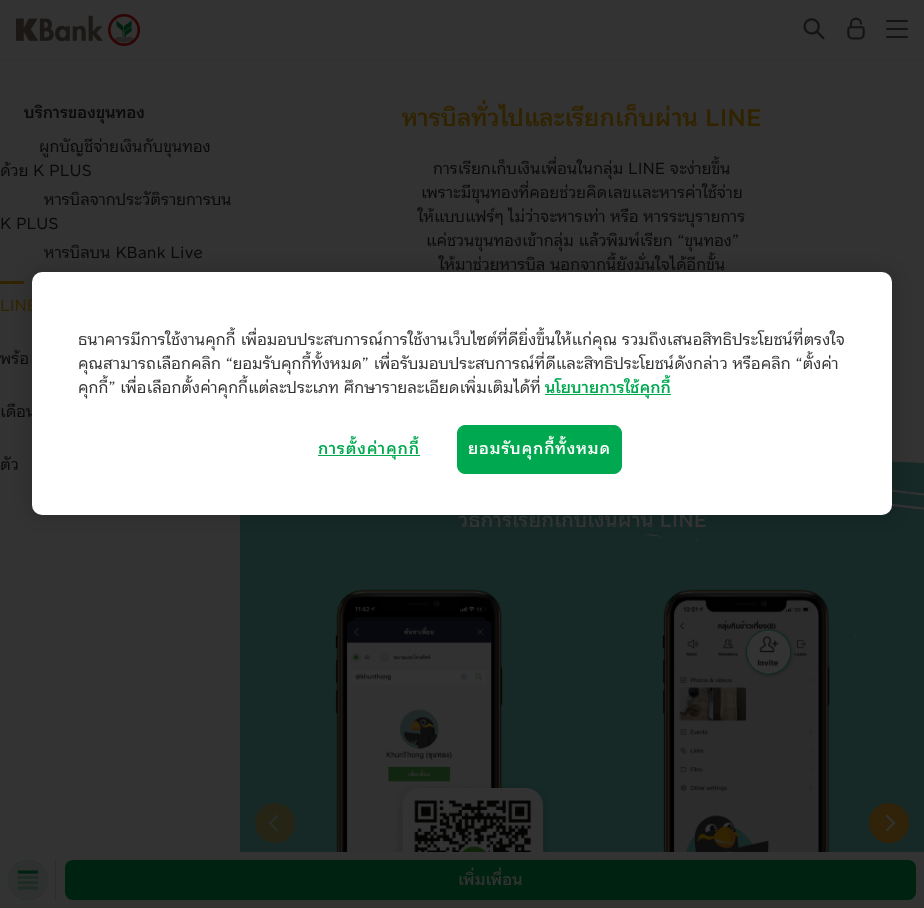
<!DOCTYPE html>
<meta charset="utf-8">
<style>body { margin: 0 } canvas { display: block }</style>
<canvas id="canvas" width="924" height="908"></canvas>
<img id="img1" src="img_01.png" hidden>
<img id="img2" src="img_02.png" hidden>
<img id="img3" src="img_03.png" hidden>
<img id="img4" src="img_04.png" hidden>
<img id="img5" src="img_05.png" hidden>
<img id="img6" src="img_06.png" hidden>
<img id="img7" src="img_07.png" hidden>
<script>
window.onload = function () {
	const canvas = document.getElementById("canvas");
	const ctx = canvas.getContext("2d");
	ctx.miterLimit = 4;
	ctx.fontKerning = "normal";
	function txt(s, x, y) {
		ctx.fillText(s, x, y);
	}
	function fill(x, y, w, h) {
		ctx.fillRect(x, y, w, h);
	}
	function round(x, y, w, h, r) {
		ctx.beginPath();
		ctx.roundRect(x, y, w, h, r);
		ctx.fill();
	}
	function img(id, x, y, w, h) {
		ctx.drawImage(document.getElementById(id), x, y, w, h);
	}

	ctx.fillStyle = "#333333";
	fill(0, 0, 924, 908);
	ctx.fillStyle = "#303030";
	fill(0, 60, 924, 1);
	img("img1", 16, 14, 124, 32);
	img("img2", 803, 18, 22, 22);
	img("img3", 847, 17, 18, 23);
	ctx.fillStyle = "#141414";
	round(886, 20, 22, 2, 1);
	round(886, 28, 22, 2, 1);
	round(886, 36, 22, 2, 1);
	ctx.fillStyle = "#312300";
	fill(0, 281, 24, 3);
	img("img4", 240, 461, 684, 391);
	ctx.fillStyle = "#262515";
	ctx.beginPath();
	ctx.arc(275, 823, 20, 0, Math.PI * 2);
	ctx.fill();
	ctx.fillStyle = "#272F2E";
	ctx.beginPath();
	ctx.moveTo(269, 823);
	ctx.lineTo(277, 814.5);
	ctx.lineTo(278.5, 816);
	ctx.lineTo(270, 824.5);
	ctx.closePath();
	ctx.fill();
	ctx.beginPath();
	ctx.moveTo(269, 823);
	ctx.lineTo(270, 821.5);
	ctx.lineTo(278.5, 830);
	ctx.lineTo(277, 831.5);
	ctx.closePath();
	ctx.fill();
	img("img5", 335, 589, 214, 263);
	img("img6", 662, 589, 168, 263);
	ctx.fillStyle = "#312309";
	ctx.beginPath();
	ctx.arc(889, 823, 20, 0, Math.PI * 2);
	ctx.fill();
	ctx.fillStyle = "#333333";
	ctx.beginPath();
	ctx.moveTo(895.5, 823);
	ctx.lineTo(887, 831.5);
	ctx.lineTo(885.5, 830);
	ctx.lineTo(894, 821.5);
	ctx.closePath();
	ctx.fill();
	ctx.beginPath();
	ctx.moveTo(895.5, 823);
	ctx.lineTo(894, 824.5);
	ctx.lineTo(885.5, 816);
	ctx.lineTo(887, 814.5);
	ctx.closePath();
	ctx.fill();
	ctx.fillStyle = "#1F2C25";
	ctx.beginPath();
	ctx.arc(28, 880, 20, 0, Math.PI * 2);
	ctx.fill();
	ctx.fillStyle = "#002210";
	fill(18, 870, 20, 4);
	img("img7", 8, 860, 40, 40);
	ctx.fillStyle = "#2D2D2D";
	fill(55, 860, 1, 40);
	ctx.fillStyle = "#002210";
	round(65, 860, 851, 40, 8);
	ctx.fillStyle = "rgba(0, 0, 0, 0.2)";
	ctx.filter = "blur(9px)";
	ctx.beginPath();
	ctx.roundRect(32, 272, 860, 243, 10);
	ctx.fill();
	ctx.filter = "none";
	ctx.font = "600 16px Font";
	ctx.fillStyle = "#0A0A0A";
	txt("บริการของขุนทอง", 24, 118);
	ctx.font = "500 16px Font";
	txt("ผูกบัญชีจ่ายเงินกับขุนทอง", 39, 152);
	txt("ด้วย K PLUS", 0, 176);
	txt("หารบิลจากประวัติรายการบน", 44, 205);
	txt("K PLUS", 0, 229);
	txt("หารบิลบน KBank Live", 44, 258);
	ctx.fillStyle = "#312300";
	txt("LINE", 0, 311);
	ctx.fillStyle = "#0A0A0A";
	txt("พร้อ", 0, 364);
	txt("เดือน", 0, 417);
	txt("ตัว", 0, 470);
	ctx.font = "600 24px Font";
	ctx.fillStyle = "#312300";
	txt("หารบิลทั่วไปและเรียกเก็บผ่าน LINE", 402, 126);
	ctx.font = "500 16px Font";
	ctx.fillStyle = "#0A0A0A";
	txt("การเรียกเก็บเงินเพื่อนในกลุ่ม LINE จะง่ายขึ้น", 433, 174);
	txt("เพราะมีขุนทองที่คอยช่วยคิดเลขและหารค่าใช้จ่าย", 421, 198);
	txt("ให้แบบแฟร์ๆ ไม่ว่าจะหารเท่า หรือ หารระบุรายการ", 418, 222);
	txt("แค่ชวนขุนทองเข้ากลุ่ม แล้วพิมพ์เรียก “ขุนทอง”", 426, 246);
	txt("ให้มาช่วยหารบิล นอกจากนี้ยังมั่นใจได้อีกขั้น", 439, 270);
	ctx.font = "600 20px Font";
	ctx.fillStyle = "#333333";
	txt("วิธีการเรียกเก็บเงินผ่าน LINE", 458, 527);
	ctx.font = "600 16px Font";
	txt("เพิ่มเพื่อน", 458, 885);
	ctx.fillStyle = "#FFFFFF";
	round(32, 272, 860, 243, 10);
	ctx.font = "500 16px Font";
	ctx.fillStyle = "#333333";
	txt("ธนาคารมีการใช้งานคุกกี้ เพื่อมอบประสบการณ์การใช้งานเว็บไซต์ที่ดียิ่งขึ้นให้แก่คุณ รวมถึงเสนอสิทธิประโยชน์ที่ตรงใจ", 78, 345);
	txt("คุณสามารถเลือกคลิก “ยอมรับคุกกี้ทั้งหมด” เพื่อรับมอบประสบการณ์ที่ดีและสิทธิประโยชน์ดังกล่าว หรือคลิก “ตั้งค่า", 78, 369);
	txt("คุกกี้” เพื่อเลือกตั้งค่าคุกกี้แต่ละประเภท ศึกษารายละเอียดเพิ่มเติมได้ที่", 78, 393);
	ctx.fillStyle = "#00A94F";
	fill(545, 394, 126, 1);
	ctx.font = "600 16px Font";
	txt("นโยบายการใช้คุกกี้", 545, 393);
	fill(318, 455, 102, 1);
	ctx.letterSpacing = "0.75px";
	txt("การตั้งค่าคุกกี้", 318, 454);
	ctx.beginPath();
	ctx.roundRect(457.5, 425.5, 164, 48, 7.5);
	ctx.fill();
	ctx.strokeStyle = "#00A94F";
	ctx.stroke();
	ctx.fillStyle = "#FFFFFF";
	txt("ยอมรับคุกกี้ทั้งหมด", 468, 454);
};
</script>
